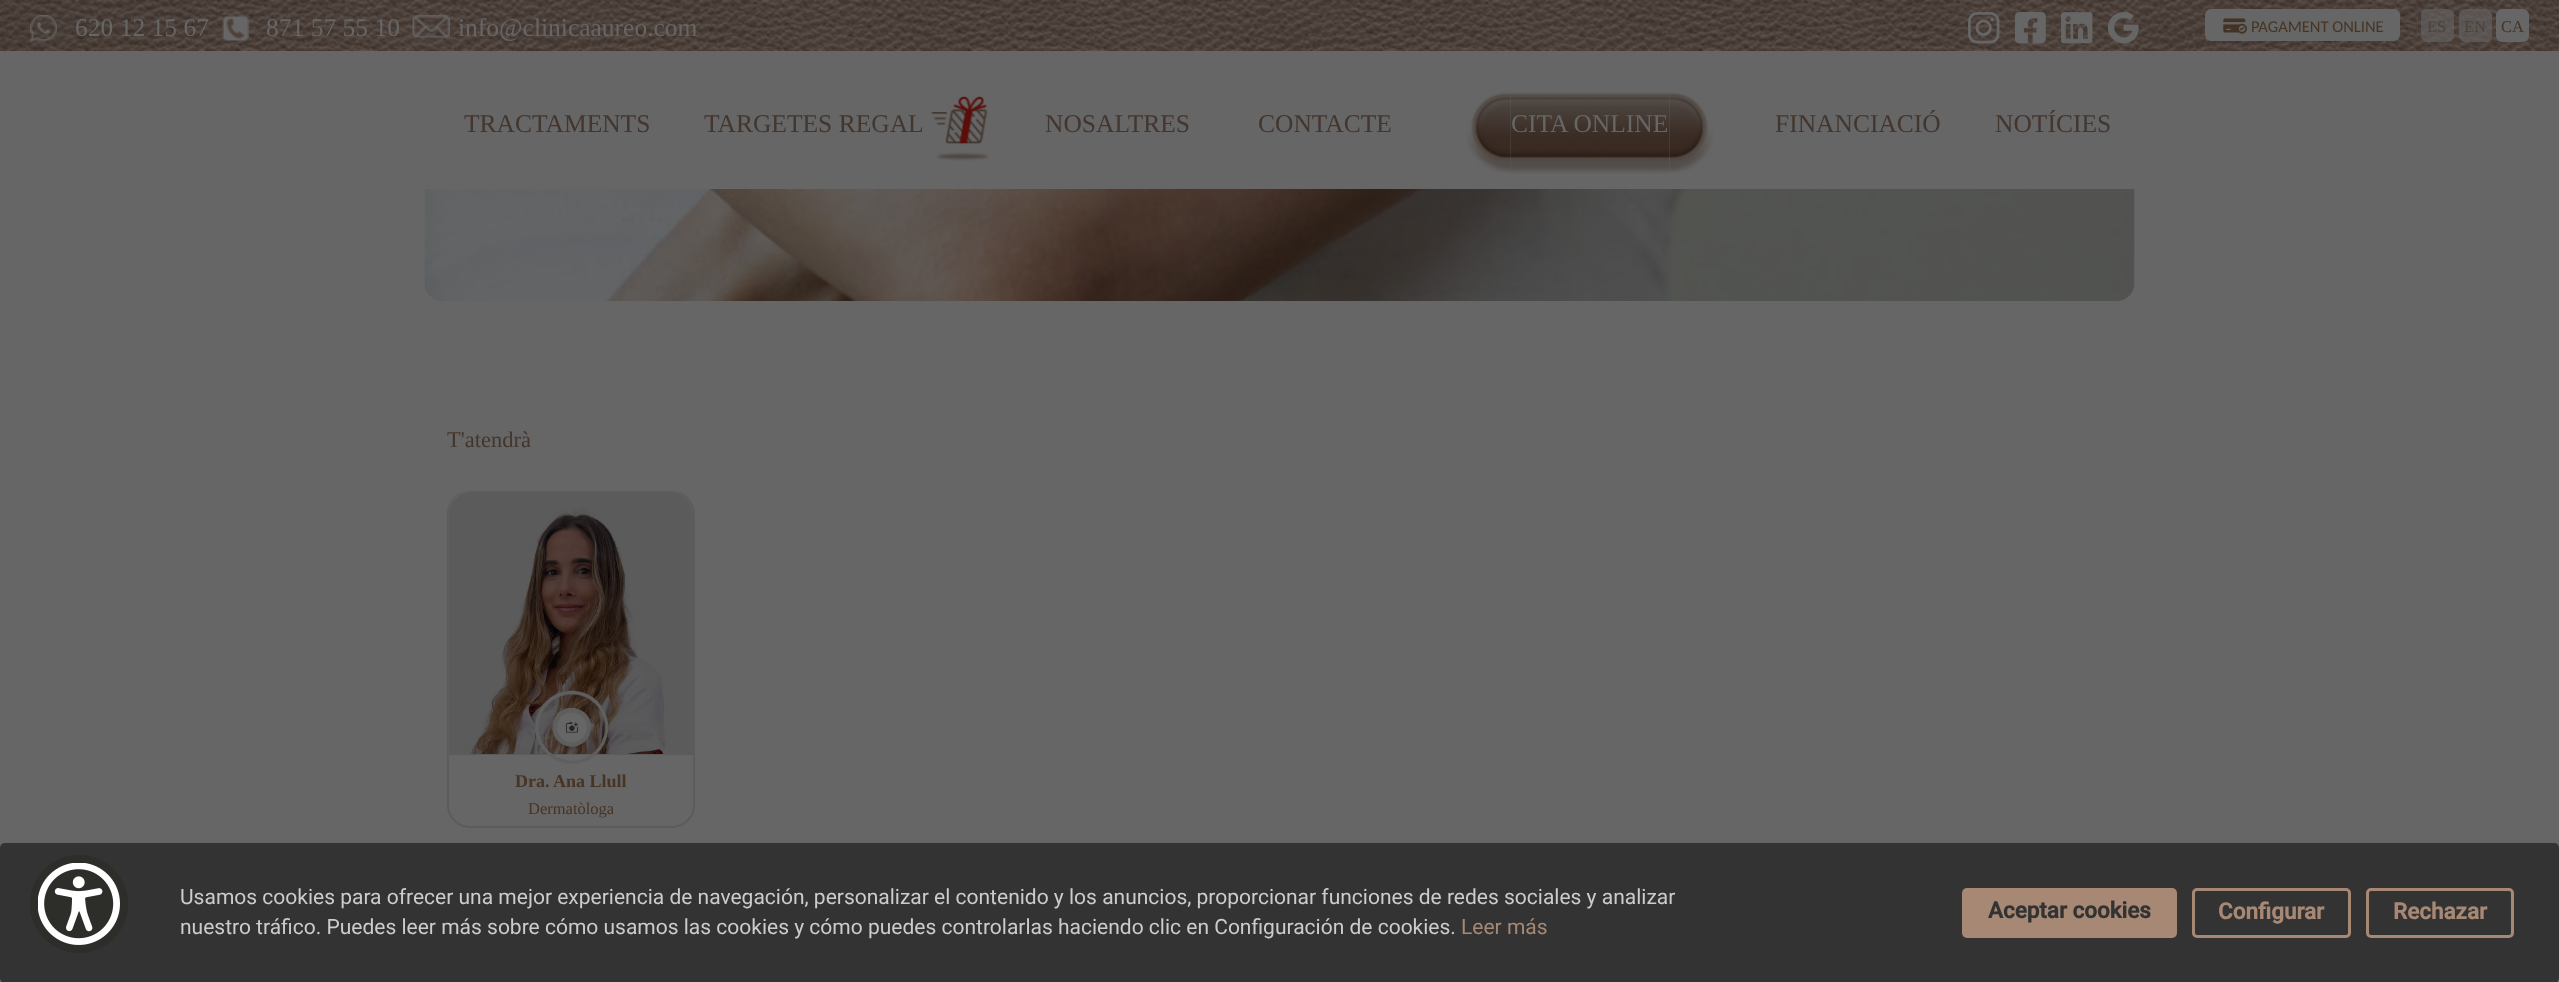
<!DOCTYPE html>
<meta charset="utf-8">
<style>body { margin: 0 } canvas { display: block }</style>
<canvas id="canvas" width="2559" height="982"></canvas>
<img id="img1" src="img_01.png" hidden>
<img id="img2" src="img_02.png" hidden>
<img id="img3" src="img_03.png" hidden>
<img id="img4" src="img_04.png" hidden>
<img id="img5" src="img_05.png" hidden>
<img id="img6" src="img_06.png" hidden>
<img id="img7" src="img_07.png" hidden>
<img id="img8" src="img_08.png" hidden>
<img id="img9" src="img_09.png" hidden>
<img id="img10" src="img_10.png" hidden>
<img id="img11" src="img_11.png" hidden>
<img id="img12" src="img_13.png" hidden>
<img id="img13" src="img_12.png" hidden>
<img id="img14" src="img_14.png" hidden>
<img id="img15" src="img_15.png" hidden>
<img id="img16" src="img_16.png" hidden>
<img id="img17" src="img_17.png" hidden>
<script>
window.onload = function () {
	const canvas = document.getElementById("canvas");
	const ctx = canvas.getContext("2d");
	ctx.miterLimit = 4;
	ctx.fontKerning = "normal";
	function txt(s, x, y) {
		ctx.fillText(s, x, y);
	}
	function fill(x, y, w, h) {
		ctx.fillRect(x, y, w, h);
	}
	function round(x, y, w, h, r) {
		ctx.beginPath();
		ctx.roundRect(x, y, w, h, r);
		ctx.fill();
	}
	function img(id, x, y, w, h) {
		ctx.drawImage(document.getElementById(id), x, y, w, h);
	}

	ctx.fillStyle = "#666666";
	fill(0, 0, 2559, 982);
	img("img1", 0, 0, 2559, 51);
	img("img2", 30, 15, 27, 27);
	img("img3", 222, 15, 27, 26);
	img("img4", 412, 15, 38, 23);
	img("img5", 1968, 12, 32, 32);
	img("img6", 2015, 12, 31, 32);
	img("img7", 2061, 12, 32, 32);
	img("img8", 2108, 12, 31, 32);
	round(2205, 9, 195, 32, 6);
	img("img9", 2223, 18, 24, 16);
	ctx.fillStyle = "rgba(102, 102, 102, 0.6)";
	round(2421, 9, 33, 33, 6);
	round(2459, 9, 33, 33, 6);
	ctx.fillStyle = "#666666";
	round(2496, 9, 33, 33, 6);
	img("img10", 931, 96, 58, 65);
	img("img11", 1466, 92, 45, 81);
	img("img12", 1669, 92, 45, 81);
	img("img13", 1510, 92, 160, 82);
	img("img14", 424, 189, 1711, 112);
	ctx.beginPath();
	ctx.roundRect(448, 492, 246, 335, 22);
	ctx.strokeStyle = "#5C5C5C";
	ctx.lineWidth = 2;
	ctx.stroke();
	img("img15", 448, 491, 245, 263);
	ctx.fillStyle = "rgba(0, 0, 0, 0.1)";
	ctx.beginPath();
	ctx.roundRect(449, 492, 244, 263, [23, 23, 0, 0]);
	ctx.fill();
	img("img16", 535, 690, 74, 74);
	ctx.fillStyle = "#333333";
	round(0, 843, 2559, 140, 5);
	ctx.fillStyle = "#2D2D2A";
	ctx.beginPath();
	ctx.arc(79, 904, 49, 0, Math.PI * 2);
	ctx.fill();
	img("img17", 38, 863, 82, 82);
	ctx.fillStyle = "#A78874";
	round(1962, 888, 215, 50, 5);
	ctx.beginPath();
	ctx.roundRect(2193.5, 889.5, 156, 47, 3.5);
	ctx.strokeStyle = "#A78874";
	ctx.lineWidth = 3;
	ctx.stroke();
	ctx.beginPath();
	ctx.roundRect(2367.5, 889.5, 145, 47, 3.5);
	ctx.stroke();
	ctx.font = "25.5px Liberation Serif";
	ctx.fillStyle = "#666666";
	txt("620 12 15 67", 75, 36);
	txt("871 57 55 10", 266, 36);
	txt("info@clinicaaureo.com", 458, 36);
	ctx.font = "16.5px Carlito";
	ctx.fillStyle = "#463425";
	txt("PAGAMENT ONLINE", 2251, 32);
	ctx.font = "16.5px Liberation Serif";
	ctx.fillStyle = "#4D4238";
	txt("ES", 2427, 32);
	txt("EN", 2464, 32);
	ctx.fillStyle = "#463425";
	txt("CA", 2501, 32);
	ctx.font = "25.5px Liberation Serif";
	ctx.fillStyle = "#43362E";
	txt("TRACTAMENTS", 464, 132);
	txt("TARGETES REGAL", 704, 132);
	txt("NOSALTRES", 1045, 132);
	txt("CONTACTE", 1258, 132);
	ctx.fillStyle = "#666666";
	txt("CITA ONLINE", 1511, 132);
	ctx.fillStyle = "#43362E";
	txt("FINANCIACIÓ", 1775, 132);
	txt("NOTÍCIES", 1995, 132);
	ctx.font = "22.5px Liberation Serif";
	txt("T'atendrà", 447, 447);
	ctx.font = "bold 18px Liberation Serif";
	ctx.fillStyle = "#463425";
	txt("Dra. Ana Llull", 515, 787);
	ctx.font = "16.5px Liberation Serif";
	txt("Dermatòloga", 528, 814);
	ctx.font = "21px Roboto";
	ctx.fillStyle = "#CCCCCC";
	txt("Usamos cookies para ofrecer una mejor experiencia de navegación, personalizar el contenido y los anuncios, proporcionar funciones de redes sociales y analizar", 180, 904);
	txt("nuestro tráfico. Puedes leer más sobre cómo usamos las cookies y cómo puedes controlarlas haciendo clic en Configuración de cookies.", 180, 934);
	ctx.fillStyle = "#A78874";
	txt("Leer más", 1461, 934);
	ctx.font = "bold 22.5px Roboto";
	ctx.fillStyle = "#333333";
	txt("Aceptar cookies", 1988, 918);
	ctx.fillStyle = "#A78874";
	txt("Configurar", 2218, 919);
	txt("Rechazar", 2393, 919);
};
</script>
